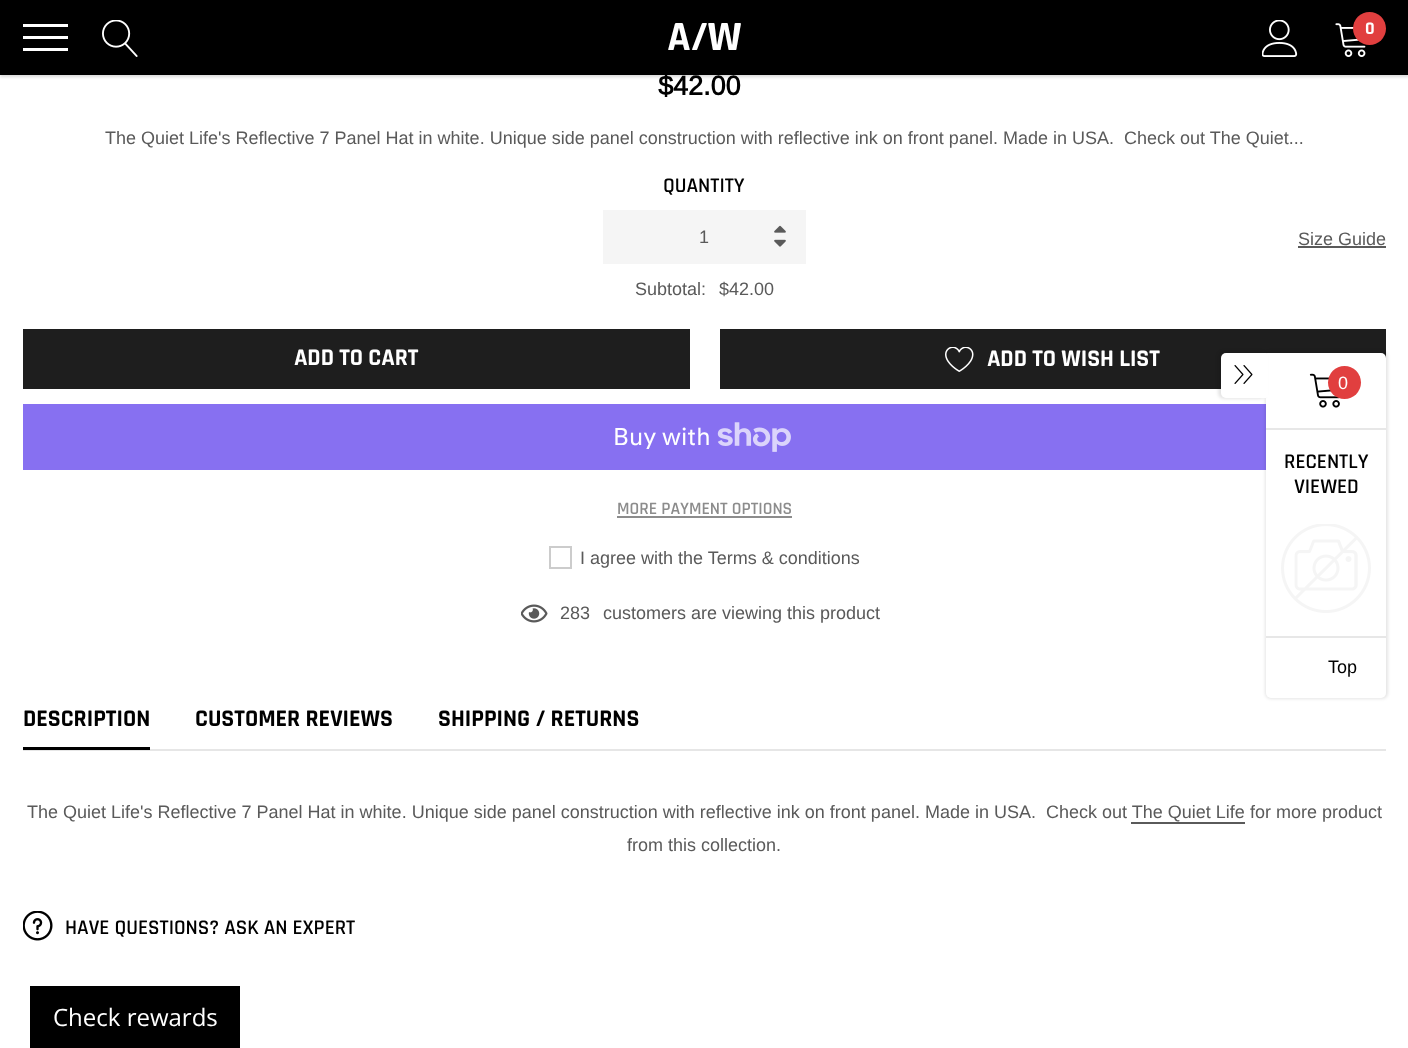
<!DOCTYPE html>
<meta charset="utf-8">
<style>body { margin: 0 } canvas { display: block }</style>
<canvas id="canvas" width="1408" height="1048"></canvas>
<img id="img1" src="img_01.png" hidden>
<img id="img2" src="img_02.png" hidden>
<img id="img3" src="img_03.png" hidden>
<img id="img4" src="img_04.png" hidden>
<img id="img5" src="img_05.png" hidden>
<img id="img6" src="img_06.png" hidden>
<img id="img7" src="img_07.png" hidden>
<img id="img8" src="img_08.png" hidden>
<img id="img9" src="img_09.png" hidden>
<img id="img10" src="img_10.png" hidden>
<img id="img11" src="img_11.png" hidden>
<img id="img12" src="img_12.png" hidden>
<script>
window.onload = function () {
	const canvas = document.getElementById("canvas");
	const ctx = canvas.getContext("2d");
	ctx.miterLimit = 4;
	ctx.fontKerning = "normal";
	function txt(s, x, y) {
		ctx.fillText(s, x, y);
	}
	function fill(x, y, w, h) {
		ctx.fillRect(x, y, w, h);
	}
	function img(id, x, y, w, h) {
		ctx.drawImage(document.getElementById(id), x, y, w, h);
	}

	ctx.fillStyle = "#FFFFFF";
	fill(0, 0, 1408, 1048);
	ctx.fillStyle = "rgba(0, 0, 0, 0.15)";
	ctx.filter = "blur(1.5px)";
	ctx.beginPath();
	ctx.rect(0, 2, 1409, 75);
	ctx.fill();
	ctx.filter = "none";
	ctx.fillStyle = "#000000";
	fill(0, 0, 1408, 75);
	ctx.fillStyle = "#FFFFFF";
	fill(23, 36, 45, 3);
	fill(23, 24, 45, 3);
	fill(23, 48, 45, 3);
	img("img1", 102, 20, 36, 37);
	img("img2", 1262, 20, 36, 37);
	img("img3", 1335, 23, 31, 34);
	ctx.fillStyle = "#E13F3F";
	ctx.beginPath();
	ctx.arc(1369.5, 28.5, 16.5, 0, Math.PI * 2);
	ctx.fill();
	ctx.fillStyle = "#F5F5F5";
	fill(603, 210, 203, 54);
	img("img4", 774, 225, 12, 8);
	img("img5", 774, 239, 12, 8);
	ctx.fillStyle = "#5A5A5A";
	fill(1298, 246, 88, 2);
	ctx.fillStyle = "#1E1E1E";
	fill(23, 329, 667, 60);
	fill(720, 329, 666, 60);
	img("img6", 945, 347, 29, 25);
	ctx.fillStyle = "#8770F1";
	fill(23, 404, 1243, 66);
	img("img7", 717, 422, 74, 30);
	ctx.fillStyle = "#8C8C8C";
	fill(617, 516, 175, 2);
	ctx.strokeStyle = "#CCCCCC";
	ctx.lineWidth = 2;
	ctx.strokeRect(550, 547, 21, 21);
	img("img8", 521, 604, 27, 19);
	ctx.fillStyle = "#E6E6E6";
	fill(23, 749, 1363, 2);
	ctx.fillStyle = "#000000";
	fill(23, 747, 127, 3);
	ctx.fillStyle = "#5A5A5A";
	fill(1131, 822, 114, 2);
	img("img9", 23, 911, 30, 30);
	ctx.fillStyle = "rgba(0, 0, 0, 0.1)";
	ctx.filter = "blur(1.5px)";
	ctx.beginPath();
	ctx.roundRect(1265, 351, 123, 348, 6);
	ctx.fill();
	ctx.filter = "none";
	ctx.fillStyle = "#FFFFFF";
	ctx.beginPath();
	ctx.roundRect(1266, 353, 120, 345, [0, 5, 5, 5]);
	ctx.fill();
	ctx.fillStyle = "rgba(0, 0, 0, 0.1)";
	ctx.filter = "blur(1.5px)";
	ctx.beginPath();
	ctx.roundRect(1218, 351, 48, 48, 6);
	ctx.fill();
	ctx.filter = "none";
	ctx.fillStyle = "#FFFFFF";
	ctx.beginPath();
	ctx.roundRect(1221, 353, 45, 45, [5, 0, 0, 5]);
	ctx.fill();
	img("img10", 1234, 365, 19, 19);
	fill(1266, 354, 2, 43);
	img("img11", 1309, 373, 31, 35);
	ctx.fillStyle = "#E13F3F";
	ctx.beginPath();
	ctx.arc(1344.5, 382.5, 16.5, 0, Math.PI * 2);
	ctx.fill();
	ctx.fillStyle = "#E7E7E7";
	fill(1266, 428, 120, 2);
	fill(1266, 636, 120, 2);
	img("img12", 1281, 524, 90, 89);
	ctx.fillStyle = "#000000";
	fill(30, 986, 210, 62);
	ctx.font = "bold 42px Rajdhani";
	ctx.fillStyle = "#FFFFFF";
	txt("A/W", 667, 50);
	ctx.font = "bold 18px Rajdhani";
	txt("0", 1365, 34);
	ctx.font = "bold 27px Arimo";
	ctx.fillStyle = "#000000";
	txt("$42.00", 658, 95);
	ctx.font = "18px Arimo";
	ctx.fillStyle = "#5A5A5A";
	txt("The Quiet Life's Reflective 7 Panel Hat in white. Unique side panel construction with reflective ink on front panel. Made in USA.  Check out The Quiet...", 105, 144);
	ctx.font = "600 21px Rajdhani";
	ctx.fillStyle = "#000000";
	txt("QUANTITY", 663, 192);
	ctx.font = "18px Arimo";
	ctx.fillStyle = "#5A5A5A";
	txt("1", 699, 243);
	txt("Size Guide", 1298, 245);
	txt("Subtotal:", 635, 295);
	txt("$42.00", 719, 295);
	ctx.font = "bold 24px Rajdhani";
	ctx.fillStyle = "#FFFFFF";
	txt("ADD TO CART", 294, 365);
	txt("ADD TO WISH LIST", 987, 366);
	ctx.font = "24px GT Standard";
	txt("Buy with", 613, 445);
	ctx.font = "600 17.5px Rajdhani";
	ctx.fillStyle = "#8C8C8C";
	txt("MORE PAYMENT OPTIONS", 617, 514);
	ctx.font = "18px Arimo";
	ctx.fillStyle = "#5A5A5A";
	txt("I agree with the Terms & conditions", 580, 564);
	txt("283", 560, 619);
	txt("customers are viewing this product", 603, 619);
	ctx.font = "bold 24px Rajdhani";
	ctx.fillStyle = "#000000";
	txt("DESCRIPTION", 23, 726);
	txt("CUSTOMER REVIEWS", 195, 726);
	txt("SHIPPING / RETURNS", 438, 726);
	ctx.font = "18px Arimo";
	ctx.fillStyle = "#5A5A5A";
	txt("The Quiet Life's Reflective 7 Panel Hat in white. Unique side panel construction with reflective ink on front panel. Made in USA.", 27, 818);
	txt("Check out The Quiet Life", 1046, 818);
	txt("for more product", 1250, 818);
	txt("from this collection.", 627, 851);
	ctx.font = "600 21px Rajdhani";
	ctx.fillStyle = "#000000";
	txt("HAVE QUESTIONS? ASK AN EXPERT", 65, 934);
	ctx.font = "18px Arimo";
	ctx.fillStyle = "#FFFFFF";
	txt("0", 1338, 389);
	ctx.font = "600 21px Rajdhani";
	ctx.fillStyle = "#000000";
	txt("RECENTLY", 1284, 468);
	txt("VIEWED", 1294, 493);
	ctx.font = "18px Arimo";
	txt("Top", 1328, 673);
	ctx.font = "24px Open Sans";
	ctx.fillStyle = "#FFFFFF";
	txt("Check rewards", 53, 1026);
};
</script>
